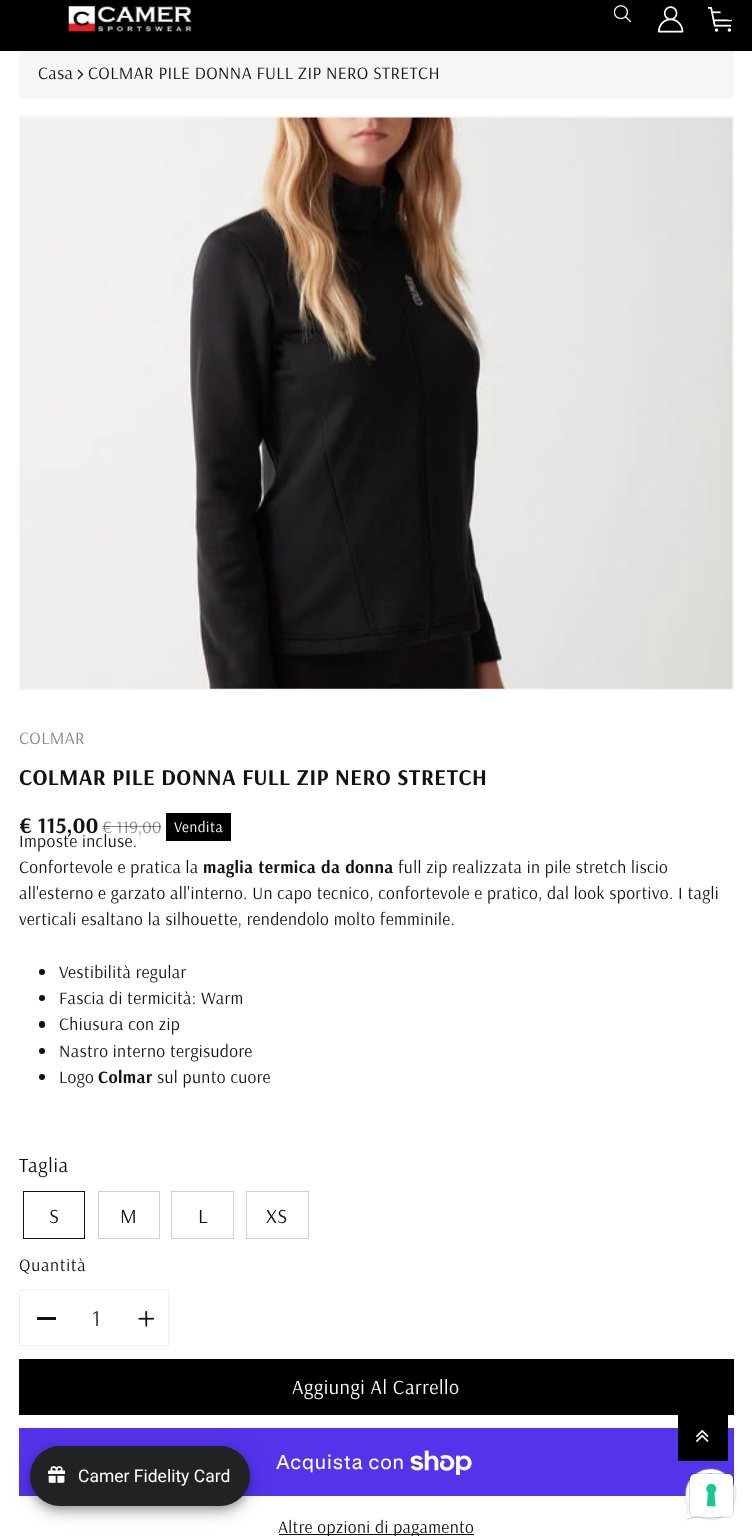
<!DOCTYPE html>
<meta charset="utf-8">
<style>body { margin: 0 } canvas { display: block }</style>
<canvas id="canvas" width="752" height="1536"></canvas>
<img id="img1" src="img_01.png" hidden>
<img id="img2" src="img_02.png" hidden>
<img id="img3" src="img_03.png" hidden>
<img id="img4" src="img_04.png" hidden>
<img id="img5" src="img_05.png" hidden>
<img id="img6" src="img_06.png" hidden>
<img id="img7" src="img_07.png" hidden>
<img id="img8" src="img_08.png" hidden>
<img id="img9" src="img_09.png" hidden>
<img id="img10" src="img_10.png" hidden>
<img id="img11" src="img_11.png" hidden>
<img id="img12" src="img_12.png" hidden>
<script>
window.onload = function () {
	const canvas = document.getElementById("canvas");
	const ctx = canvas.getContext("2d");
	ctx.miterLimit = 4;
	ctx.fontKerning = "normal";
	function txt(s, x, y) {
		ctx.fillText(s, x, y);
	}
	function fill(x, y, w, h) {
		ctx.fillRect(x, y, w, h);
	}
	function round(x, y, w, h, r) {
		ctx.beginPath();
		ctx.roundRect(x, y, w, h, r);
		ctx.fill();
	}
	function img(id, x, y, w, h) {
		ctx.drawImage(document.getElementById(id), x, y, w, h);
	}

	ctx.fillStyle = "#FFFFFF";
	fill(0, 0, 752, 1536);
	ctx.fillStyle = "#000000";
	fill(0, 0, 752, 51);
	img("img1", 68, 6, 124, 26);
	img("img2", 614, 5, 18, 18);
	img("img3", 658, 6, 26, 27);
	img("img4", 708, 7, 25, 25);
	ctx.beginPath();
	ctx.arc(730.5, 9.5, 10.5, 0, Math.PI * 2);
	ctx.fill();
	ctx.fillStyle = "#F6F6F6";
	fill(19, 51, 715, 47);
	img("img5", 77, 69, 7, 11);
	ctx.strokeStyle = "#F3F3F3";
	ctx.strokeRect(19.5, 116.5, 714, 573);
	img("img6", 20, 117, 713, 572);
	ctx.fillStyle = "#000000";
	fill(166, 813, 65, 28);
	ctx.fillStyle = "#121212";
	ctx.beginPath();
	ctx.arc(42, 972, 3, 0, Math.PI * 2);
	ctx.fill();
	ctx.beginPath();
	ctx.arc(42, 998, 3, 0, Math.PI * 2);
	ctx.fill();
	round(39, 1021, 6, 7, 3);
	ctx.beginPath();
	ctx.arc(42, 1051, 3, 0, Math.PI * 2);
	ctx.fill();
	ctx.beginPath();
	ctx.arc(42, 1077, 3, 0, Math.PI * 2);
	ctx.fill();
	ctx.strokeStyle = "#121212";
	ctx.strokeRect(23.5, 1191.5, 61, 47);
	ctx.strokeStyle = "#D0D0D0";
	ctx.strokeRect(98.5, 1191.5, 61, 47);
	ctx.strokeRect(171.5, 1191.5, 62, 47);
	ctx.strokeRect(246.5, 1191.5, 62, 47);
	ctx.strokeStyle = "#EEEEEE";
	ctx.strokeRect(19.5, 1290.5, 149, 55);
	fill(37, 1317, 19, 3);
	img("img7", 138, 1310, 17, 17);
	ctx.fillStyle = "#000000";
	fill(19, 1359, 715, 56);
	ctx.fillStyle = "#5433EB";
	fill(19, 1428, 715, 68);
	img("img8", 410, 1450, 62, 25);
	ctx.fillStyle = "#121212";
	fill(279, 1534, 195, 1);
	ctx.fillStyle = "#000000";
	fill(678, 1415, 50, 46);
	img("img9", 696, 1429, 13, 13);
	ctx.fillStyle = "rgba(0, 0, 0, 0.12)";
	ctx.filter = "blur(11px)";
	ctx.beginPath();
	ctx.roundRect(30, 1448, 220, 60, 30);
	ctx.fill();
	ctx.filter = "none";
	ctx.fillStyle = "rgba(0, 0, 0, 0.14)";
	ctx.filter = "blur(6px)";
	ctx.beginPath();
	ctx.roundRect(30, 1454, 220, 60, 30);
	ctx.fill();
	ctx.filter = "none";
	ctx.fillStyle = "rgba(0, 0, 0, 0.2)";
	ctx.filter = "blur(3px)";
	ctx.beginPath();
	ctx.roundRect(31, 1451, 218, 58, 29);
	ctx.fill();
	ctx.filter = "none";
	ctx.fillStyle = "#202223";
	round(30, 1446, 220, 60, 30);
	img("img10", 48, 1466, 17, 17);
	img("img11", 684, 1467, 53, 54);
	ctx.beginPath();
	ctx.roundRect(689.5, 1473.5, 44, 44, 5.5);
	ctx.strokeStyle = "rgba(0, 0, 0, 0.15)";
	ctx.stroke();
	ctx.fillStyle = "#FFFFFF";
	round(690, 1474, 43, 42, 5);
	img("img12", 706, 1483, 11, 24);
	ctx.letterSpacing = "0.38px";
	ctx.font = "17.5px Arsenal";
	ctx.fillStyle = "#121212";
	txt("Casa", 38, 79);
	txt("COLMAR PILE DONNA FULL ZIP NERO STRETCH", 88, 79);
	ctx.fillStyle = "#898989";
	txt("COLMAR", 19, 744);
	ctx.font = "bold 22.6px Arsenal";
	ctx.fillStyle = "#121212";
	txt("COLMAR PILE DONNA FULL ZIP NERO STRETCH", 19, 785);
	ctx.letterSpacing = "0px";
	ctx.font = "bold 22.5px Arsenal";
	txt("€ 115,00", 19, 833);
	ctx.font = "17.5px Arsenal";
	ctx.fillStyle = "#898989";
	txt("€ 119,00", 102, 833);
	ctx.fillStyle = "rgba(18, 18, 18, 0.5)";
	fill(103, 826, 58, 1);
	ctx.letterSpacing = "0.6px";
	ctx.font = "15px Arsenal";
	ctx.fillStyle = "#FFFFFF";
	txt("Vendita", 174, 832);
	ctx.letterSpacing = "0.38px";
	ctx.font = "17.5px Arsenal";
	ctx.fillStyle = "#121212";
	txt("Imposte incluse.", 19, 847);
	txt("Confortevole e pratica la", 19, 873);
	ctx.font = "bold 17.5px Arsenal";
	txt("maglia termica da donna", 203, 873);
	ctx.font = "17.5px Arsenal";
	txt("full zip realizzata in pile stretch liscio", 398, 873);
	txt("all'esterno e garzato all'interno. Un capo tecnico, confortevole e pratico, dal look sportivo. I tagli", 19, 899);
	txt("verticali esaltano la silhouette, rendendolo molto femminile.", 19, 925);
	txt("Vestibilità regular", 59, 978);
	txt("Fascia di termicità: Warm", 59, 1004);
	txt("Chiusura con zip", 59, 1030);
	txt("Nastro interno tergisudore", 59, 1057);
	txt("Logo", 59, 1083);
	ctx.font = "bold 17.5px Arsenal";
	txt("Colmar", 98, 1083);
	ctx.font = "17.5px Arsenal";
	txt("sul punto cuore", 157, 1083);
	ctx.letterSpacing = "0.75px";
	ctx.font = "20.1px Arsenal";
	txt("Taglia", 19, 1172);
	ctx.letterSpacing = "0.38px";
	txt("S", 49, 1223);
	txt("M", 120, 1223);
	txt("L", 198, 1223);
	txt("XS", 266, 1223);
	ctx.letterSpacing = "0.75px";
	ctx.font = "17.5px Arsenal";
	txt("Quantità", 19, 1271);
	ctx.letterSpacing = "0px";
	ctx.font = "22.6px Arsenal";
	ctx.fillStyle = "#363636";
	txt("1", 92, 1326);
	ctx.letterSpacing = "0.6px";
	ctx.font = "20.1px Arsenal";
	ctx.fillStyle = "#FFFFFF";
	txt("Aggiungi Al Carrello", 292, 1394);
	ctx.letterSpacing = "0.38px";
	ctx.font = "20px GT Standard";
	txt("Acquista con", 276, 1469);
	ctx.font = "17.5px Arsenal";
	ctx.fillStyle = "#121212";
	txt("Altre opzioni di pagamento", 278, 1533);
	ctx.letterSpacing = "0px";
	ctx.font = "17.5px Roboto";
	ctx.fillStyle = "#FFFFFF";
	txt("Camer Fidelity Card", 78, 1482);
};
</script>
